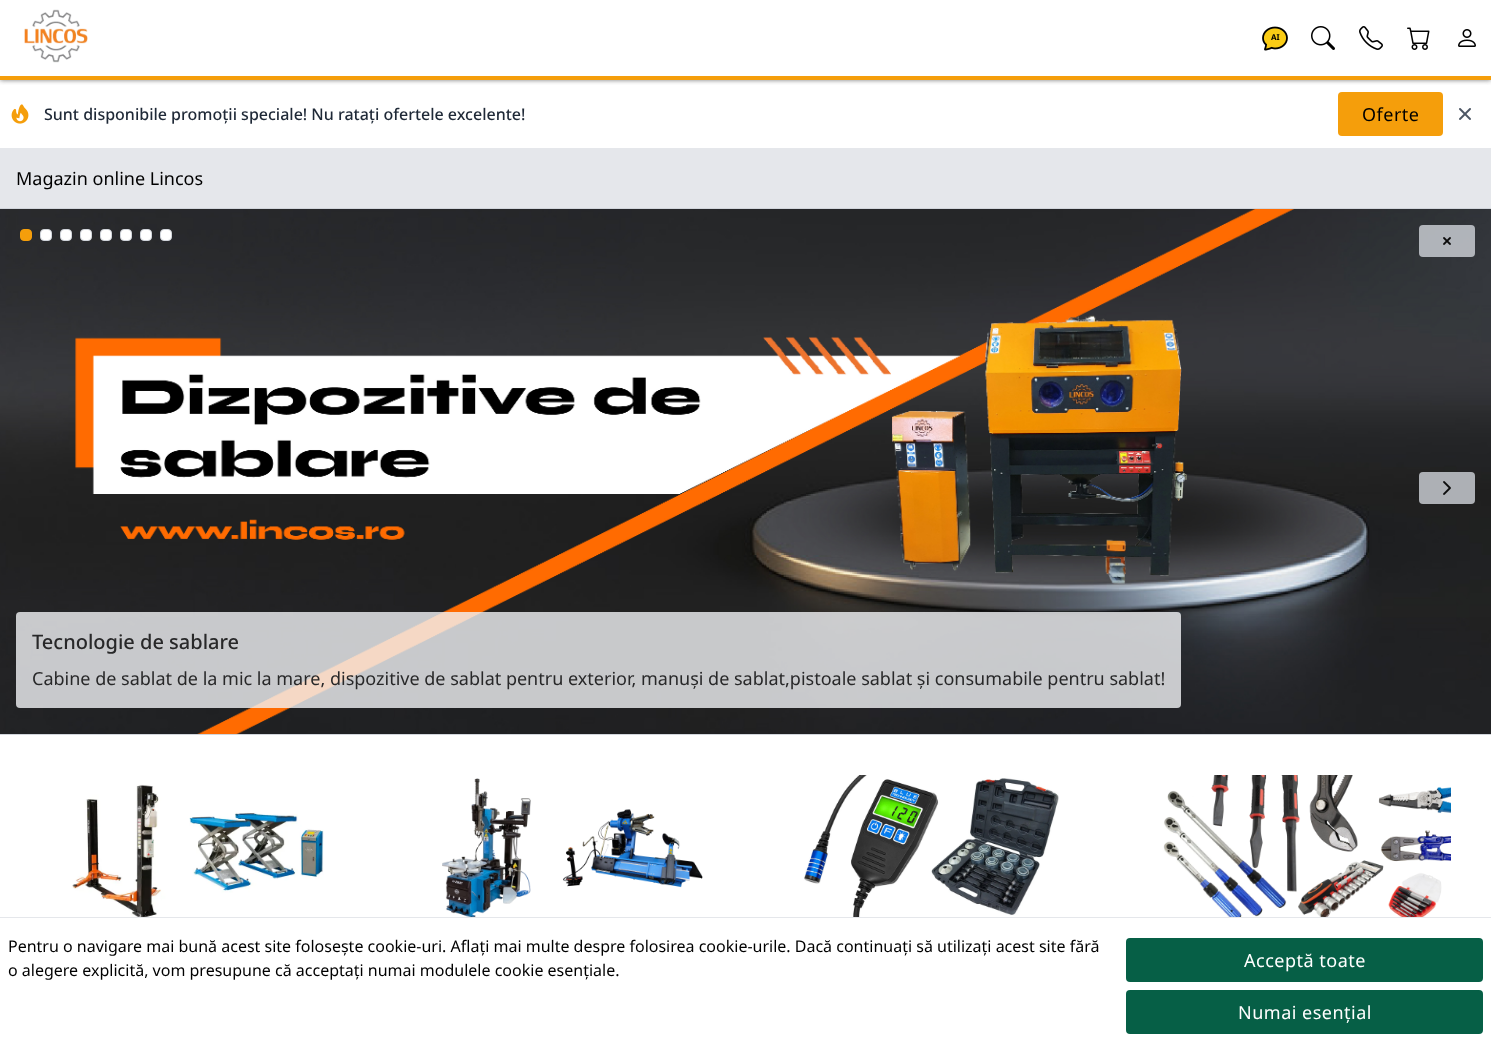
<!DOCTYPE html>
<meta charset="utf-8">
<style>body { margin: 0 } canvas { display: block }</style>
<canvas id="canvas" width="1491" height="1054"></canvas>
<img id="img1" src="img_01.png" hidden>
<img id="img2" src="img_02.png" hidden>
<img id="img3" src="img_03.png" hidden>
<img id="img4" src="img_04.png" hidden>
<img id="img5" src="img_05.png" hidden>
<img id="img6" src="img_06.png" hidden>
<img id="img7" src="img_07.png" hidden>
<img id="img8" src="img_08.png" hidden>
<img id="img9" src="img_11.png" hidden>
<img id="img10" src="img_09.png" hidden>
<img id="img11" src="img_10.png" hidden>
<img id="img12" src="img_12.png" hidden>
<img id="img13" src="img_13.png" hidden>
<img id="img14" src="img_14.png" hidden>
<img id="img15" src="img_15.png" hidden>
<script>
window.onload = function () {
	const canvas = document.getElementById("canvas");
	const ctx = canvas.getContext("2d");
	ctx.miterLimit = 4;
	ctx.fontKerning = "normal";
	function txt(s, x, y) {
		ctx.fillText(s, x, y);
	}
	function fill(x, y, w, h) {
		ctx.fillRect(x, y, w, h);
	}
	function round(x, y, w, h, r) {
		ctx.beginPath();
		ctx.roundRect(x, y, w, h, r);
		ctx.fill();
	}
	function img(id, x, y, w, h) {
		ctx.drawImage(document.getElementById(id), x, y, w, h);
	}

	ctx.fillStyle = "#FFFFFF";
	fill(0, 0, 1491, 1054);
	ctx.save();
	ctx.beginPath();
	ctx.rect(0, 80, 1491, 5);
	ctx.clip();
	ctx.fillStyle = "#777777";
	ctx.filter = "blur(2.5px)";
	ctx.beginPath();
	ctx.rect(0, 0, 1491, 80);
	ctx.fill();
	ctx.filter = "none";
	ctx.restore();
	ctx.fillStyle = "#F59E0B";
	fill(0, 76, 1491, 4);
	img("img1", 24, 9, 64, 54);
	img("img2", 1262, 26, 26, 25);
	img("img3", 1311, 26, 24, 24);
	img("img4", 1359, 26, 24, 24);
	img("img5", 1407, 27, 23, 23);
	img("img6", 1458, 29, 18, 18);
	img("img7", 11, 104, 18, 20);
	round(1338, 92, 105, 44, 4);
	img("img8", 1459, 108, 12, 12);
	ctx.fillStyle = "#E5E7EB";
	fill(0, 148, 1491, 60);
	ctx.fillStyle = "#D1D5DB";
	fill(0, 208, 1491, 1);
	fill(0, 734, 1491, 1);
	img("img9", 0, 209, 1491, 525);
	ctx.fillStyle = "#F59E0B";
	ctx.beginPath();
	ctx.roundRect(20.5, 229.5, 11, 11, 3.5);
	ctx.fill();
	ctx.strokeStyle = "#F59E0B";
	ctx.stroke();
	ctx.fillStyle = "#FFFFFF";
	ctx.beginPath();
	ctx.roundRect(40.5, 229.5, 11, 11, 3.5);
	ctx.fill();
	ctx.strokeStyle = "#D1D5DB";
	ctx.stroke();
	ctx.beginPath();
	ctx.roundRect(60.5, 229.5, 11, 11, 3.5);
	ctx.fill();
	ctx.stroke();
	ctx.beginPath();
	ctx.roundRect(80.5, 229.5, 11, 11, 3.5);
	ctx.fill();
	ctx.stroke();
	ctx.beginPath();
	ctx.roundRect(100.5, 229.5, 11, 11, 3.5);
	ctx.fill();
	ctx.stroke();
	ctx.beginPath();
	ctx.roundRect(120.5, 229.5, 11, 11, 3.5);
	ctx.fill();
	ctx.stroke();
	ctx.beginPath();
	ctx.roundRect(140.5, 229.5, 11, 11, 3.5);
	ctx.fill();
	ctx.stroke();
	ctx.beginPath();
	ctx.roundRect(160.5, 229.5, 11, 11, 3.5);
	ctx.fill();
	ctx.stroke();
	ctx.fillStyle = "rgba(209, 213, 219, 0.8)";
	round(1419, 225, 56, 32, 4);
	img("img10", 1443, 237, 8, 8);
	round(1419, 472, 56, 32, 4);
	img("img11", 1443, 481, 8, 14);
	ctx.fillStyle = "rgba(243, 244, 246, 0.8)";
	round(16, 612, 1165, 96, 4);
	img("img12", 49, 784, 275, 133);
	img("img13", 431, 778, 275, 139);
	img("img14", 803, 775, 256, 142);
	img("img15", 1159, 775, 292, 142);
	ctx.fillStyle = "#E5E7EB";
	fill(0, 917, 1491, 1);
	ctx.fillStyle = "#065F46";
	round(1126, 938, 357, 44, 4);
	round(1126, 990, 357, 44, 4);
	ctx.font = "bold 8px Noto Sans";
	ctx.fillStyle = "#000000";
	txt("AI", 1271, 40);
	ctx.font = "500 16px Noto Sans";
	ctx.fillStyle = "#1F2937";
	txt("Sunt disponibile promoții speciale! Nu ratați ofertele excelente!", 44, 120);
	ctx.letterSpacing = "0.5px";
	ctx.font = "18px Noto Sans";
	ctx.fillStyle = "#000000";
	txt("Oferte", 1362, 121);
	ctx.letterSpacing = "0px";
	txt("Magazin online Lincos", 16, 185);
	ctx.font = "500 20px Noto Sans";
	ctx.fillStyle = "#282829";
	txt("Tecnologie de sablare", 32, 649);
	ctx.font = "18px Noto Sans";
	txt("Cabine de sablat de la mic la mare, dispozitive de sablat pentru exterior, manuși de sablat,pistoale sablat și consumabile pentru sablat!", 32, 685);
	ctx.font = "16px Noto Sans";
	ctx.fillStyle = "#000000";
	txt("Pentru o navigare mai bună acest site folosește cookie-uri. Aflați mai multe despre folosirea cookie-urile. Dacă continuați să utilizați acest site fără", 8, 952);
	txt("o alegere explicită, vom presupune că acceptați numai modulele cookie esențiale.", 8, 976);
	ctx.letterSpacing = "0.5px";
	ctx.font = "18px Noto Sans";
	ctx.fillStyle = "#FFFFFF";
	txt("Acceptă toate", 1244, 967);
	txt("Numai esențial", 1238, 1019);
};
</script>
